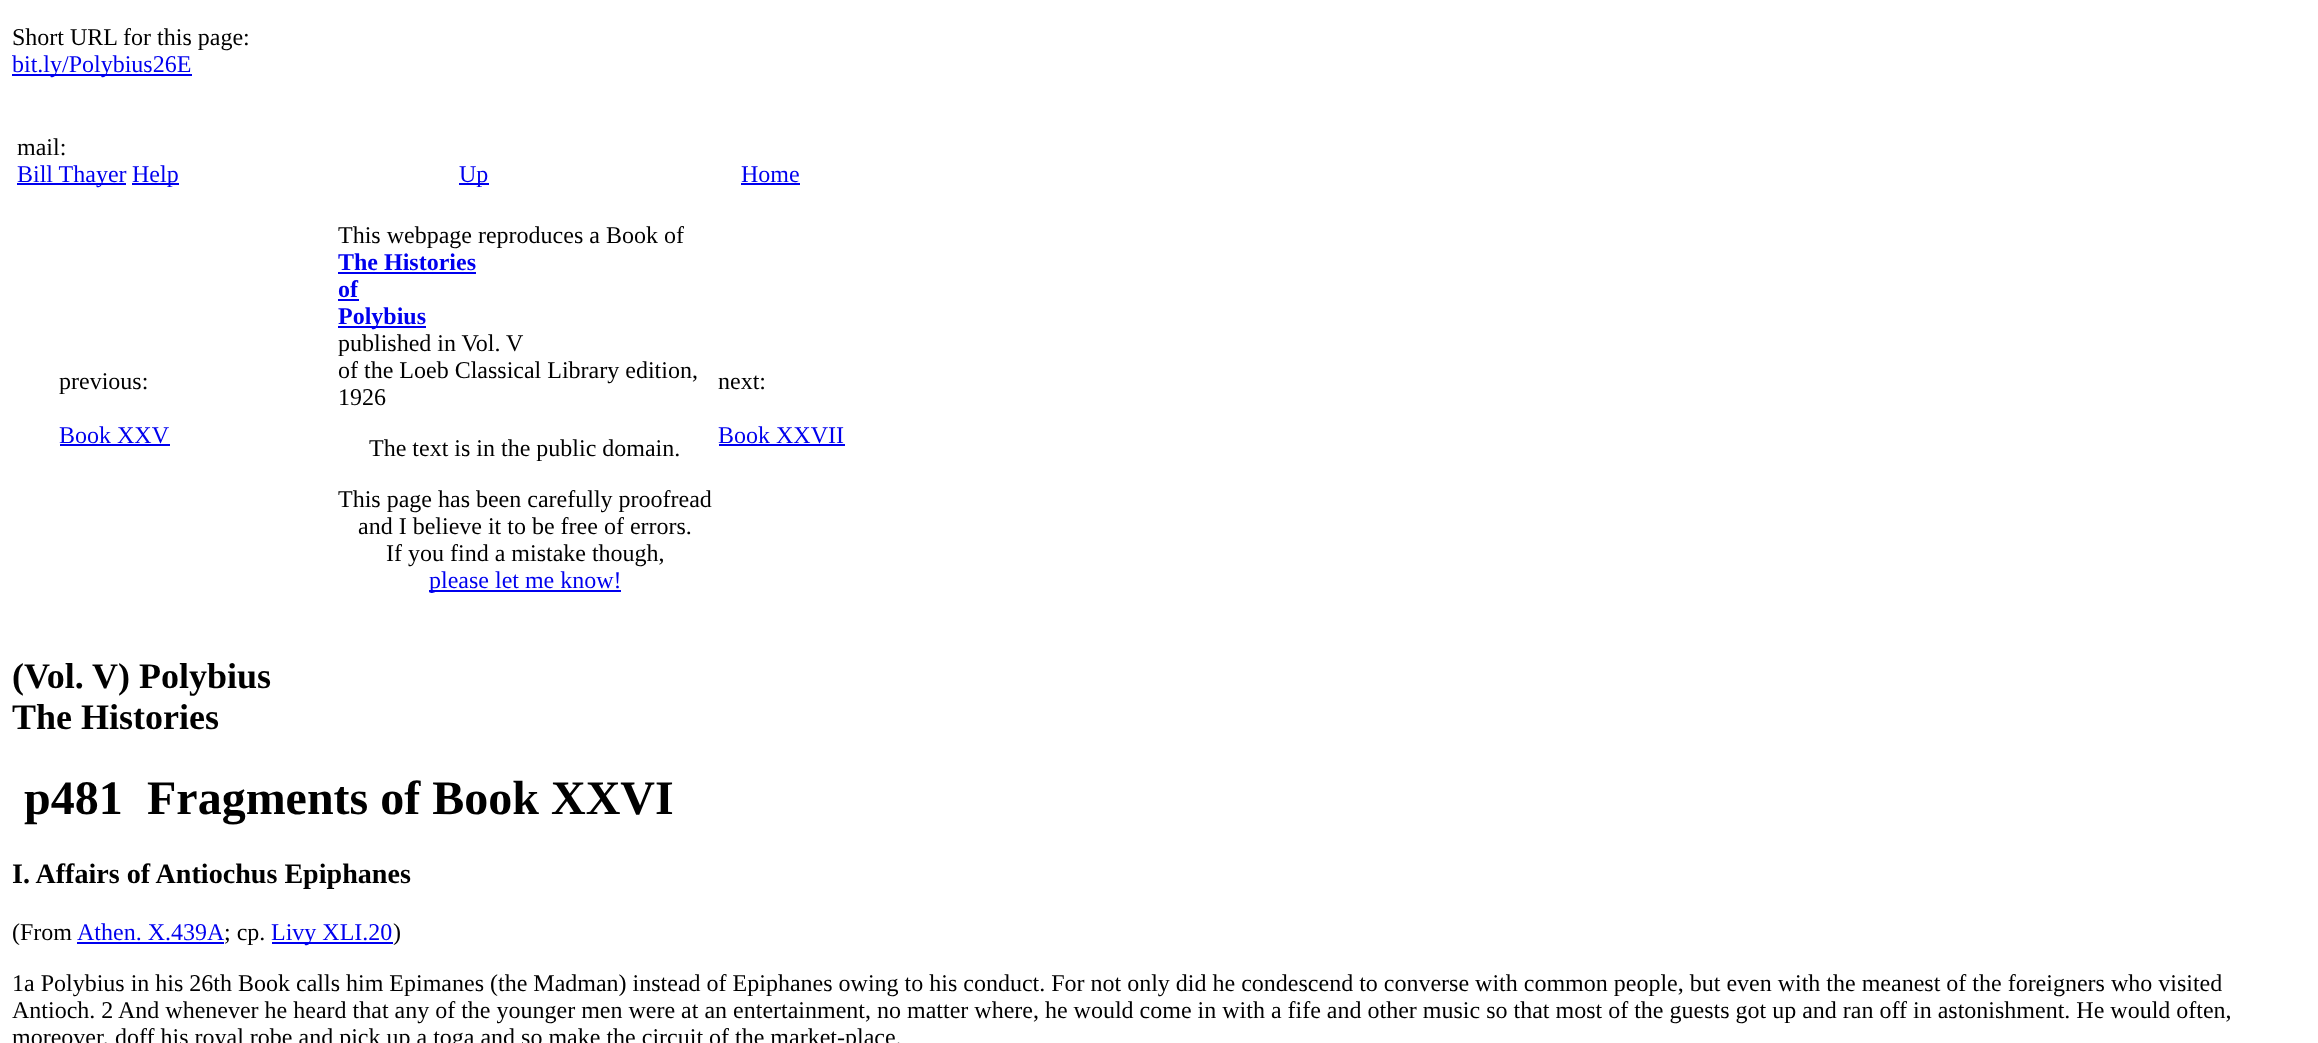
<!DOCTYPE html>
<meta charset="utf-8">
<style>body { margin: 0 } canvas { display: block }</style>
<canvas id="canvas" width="2318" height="1043"></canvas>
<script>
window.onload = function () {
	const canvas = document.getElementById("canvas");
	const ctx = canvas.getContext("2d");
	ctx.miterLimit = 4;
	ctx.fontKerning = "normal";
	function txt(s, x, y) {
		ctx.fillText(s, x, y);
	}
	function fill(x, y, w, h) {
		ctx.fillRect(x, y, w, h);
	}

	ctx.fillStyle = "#FFFFFF";
	fill(0, 0, 2318, 1043);
	ctx.fillStyle = "#0000EE";
	fill(12, 74, 180, 2);
	fill(17, 183, 109, 2);
	fill(132, 183, 47, 2);
	fill(459, 183, 30, 2);
	fill(741, 183, 59, 2);
	fill(60, 444, 110, 2);
	fill(338, 272, 138, 2);
	fill(338, 299, 21, 2);
	fill(338, 326, 88, 2);
	fill(429, 590, 192, 2);
	fill(719, 444, 126, 2);
	fill(77, 942, 147, 2);
	fill(272, 942, 121, 2);
	ctx.font = "24px Liberation Serif";
	ctx.fillStyle = "#000000";
	txt("Short URL for this page:", 12, 45);
	ctx.fillStyle = "#0000EE";
	txt("bit.ly/Polybius26E", 12, 72);
	ctx.fillStyle = "#000000";
	txt("mail:", 17, 155);
	ctx.fillStyle = "#0000EE";
	txt("Bill Thayer", 17, 182);
	txt("Help", 132, 182);
	txt("Up", 459, 182);
	txt("Home", 741, 182);
	ctx.fillStyle = "#000000";
	txt("previous:", 59, 389);
	ctx.fillStyle = "#0000EE";
	txt("Book XXV", 59, 443);
	ctx.fillStyle = "#000000";
	txt("This webpage reproduces a Book of", 338, 243);
	ctx.font = "bold 24px Liberation Serif";
	ctx.fillStyle = "#0000EE";
	txt("The Histories", 338, 270);
	txt("of", 338, 297);
	txt("Polybius", 338, 324);
	ctx.font = "24px Liberation Serif";
	ctx.fillStyle = "#000000";
	txt("published in Vol. V", 338, 351);
	txt("of the Loeb Classical Library edition,", 338, 378);
	txt("1926", 338, 405);
	txt("The text is in the public domain.", 369, 456);
	txt("This page has been carefully proofread", 338, 507);
	txt("and I believe it to be free of errors.", 358, 534);
	txt("If you find a mistake though,", 386, 561);
	ctx.fillStyle = "#0000EE";
	txt("please let me know!", 429, 588);
	ctx.fillStyle = "#000000";
	txt("next:", 718, 389);
	ctx.fillStyle = "#0000EE";
	txt("Book XXVII", 718, 443);
	ctx.font = "bold 36px Liberation Serif";
	ctx.fillStyle = "#000000";
	txt("(Vol. V) Polybius", 12, 688);
	txt("The Histories", 12, 729);
	ctx.font = "bold 48px Liberation Serif";
	txt("p481", 24, 814);
	txt("Fragments of Book XXVI", 147, 814);
	ctx.font = "bold 28.1px Liberation Serif";
	txt("I. Affairs of Antiochus Epiphanes", 12, 883);
	ctx.font = "24px Liberation Serif";
	txt("(From", 12, 940);
	ctx.fillStyle = "#0000EE";
	txt("Athen. X.439A", 77, 940);
	ctx.fillStyle = "#000000";
	txt("; cp.", 224, 940);
	ctx.fillStyle = "#0000EE";
	txt("Livy XLI.20", 271, 940);
	ctx.fillStyle = "#000000";
	txt(")", 393, 940);
	txt("1a Polybius in his 26th Book calls him Epimanes (the Madman) instead of Epiphanes owing to his conduct. For not only did he condescend to converse with common people, but even with the meanest of the foreigners who visited", 12, 991);
	txt("Antioch. 2 And whenever he heard that any of the younger men were at an entertainment, no matter where, he would come in with a fife and other music so that most of the guests got up and ran off in astonishment. He would often,", 12, 1018);
	txt("moreover, doff his royal robe and pick up a toga and so make the circuit of the market-place.", 12, 1045);
};
</script>
